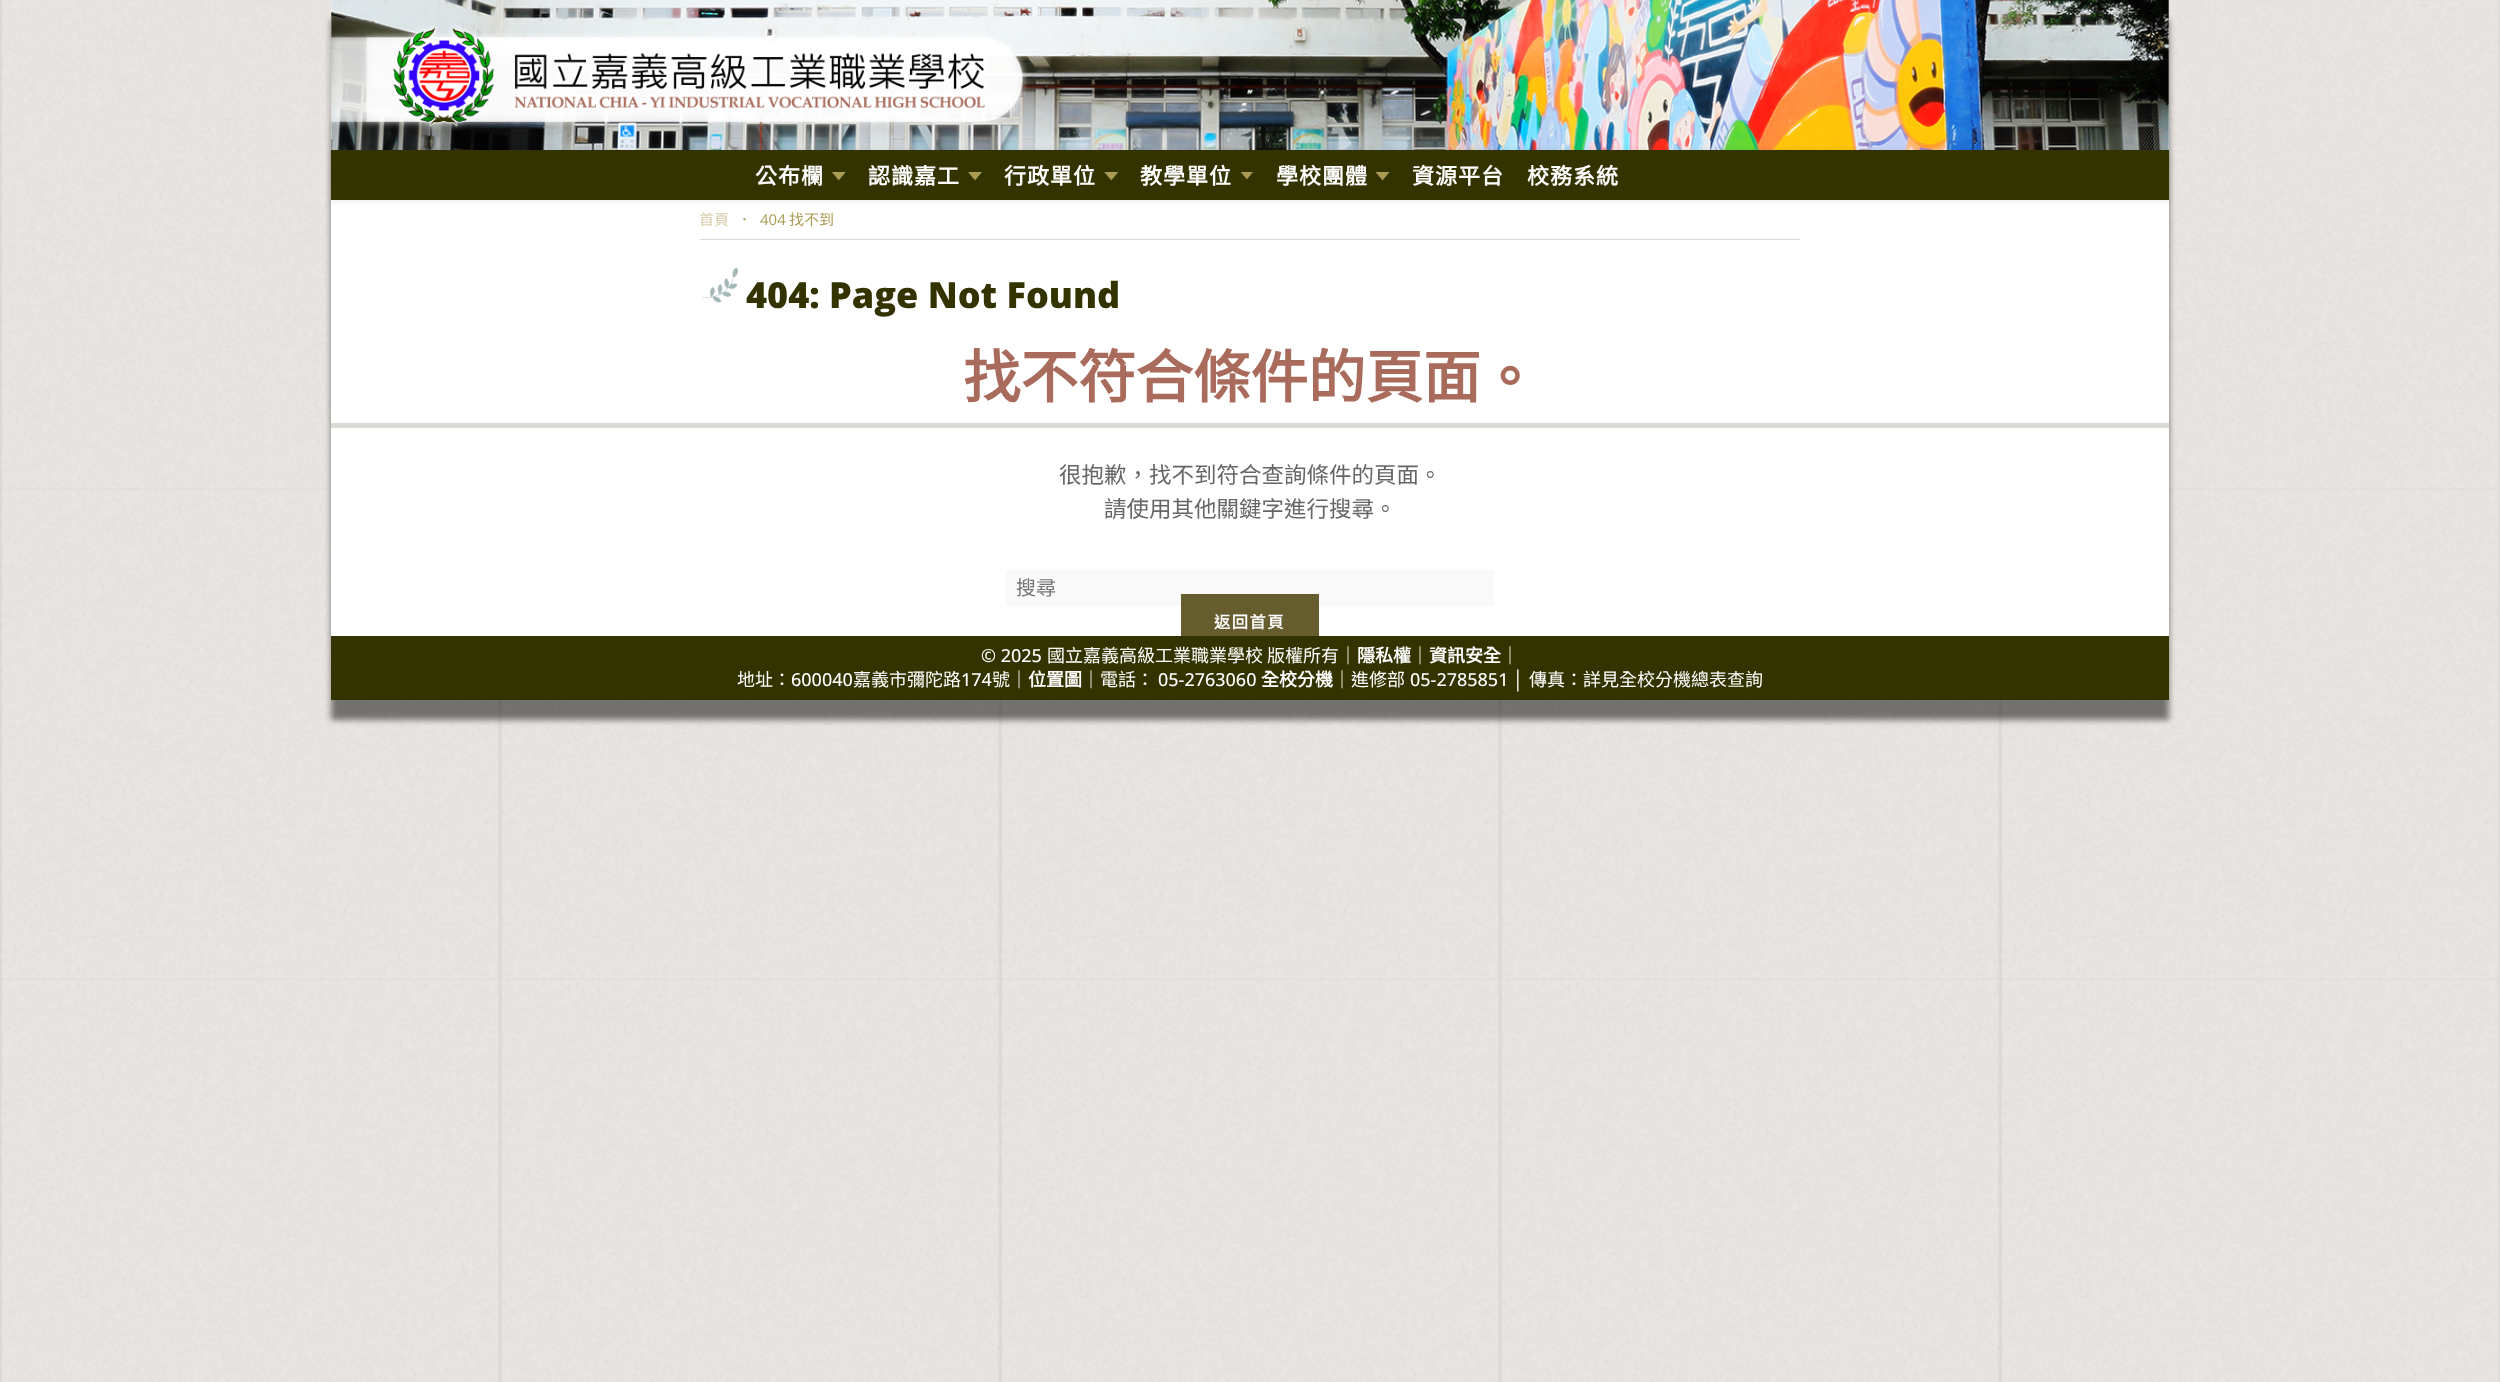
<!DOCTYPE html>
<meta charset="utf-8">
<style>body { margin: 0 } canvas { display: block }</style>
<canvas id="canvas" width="2500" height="1382"></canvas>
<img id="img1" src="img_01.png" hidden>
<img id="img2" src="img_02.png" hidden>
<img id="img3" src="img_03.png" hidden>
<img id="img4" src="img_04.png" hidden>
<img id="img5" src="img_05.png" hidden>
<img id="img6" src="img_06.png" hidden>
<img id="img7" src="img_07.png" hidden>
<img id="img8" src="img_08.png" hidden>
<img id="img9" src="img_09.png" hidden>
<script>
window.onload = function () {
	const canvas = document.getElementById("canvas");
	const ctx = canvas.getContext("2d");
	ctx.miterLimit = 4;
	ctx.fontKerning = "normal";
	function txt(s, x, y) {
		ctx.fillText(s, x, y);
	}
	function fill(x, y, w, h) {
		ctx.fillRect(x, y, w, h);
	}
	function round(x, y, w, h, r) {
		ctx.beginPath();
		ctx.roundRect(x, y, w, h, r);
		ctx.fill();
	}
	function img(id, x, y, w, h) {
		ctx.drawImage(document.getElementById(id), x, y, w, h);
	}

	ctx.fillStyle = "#E5E5E5";
	fill(0, 0, 2500, 1382);
	img("img1", 0, 0, 2500, 1382);
	ctx.fillStyle = "rgba(0, 0, 0, 0.5)";
	ctx.filter = "blur(3px)";
	ctx.beginPath();
	ctx.rect(331, 20, 1838, 700);
	ctx.fill();
	ctx.filter = "none";
	ctx.fillStyle = "#FFFFFF";
	fill(331, 0, 1838, 636);
	img("img2", 331, 0, 1838, 150);
	img("img3", 328, 25, 701, 106);
	ctx.fillStyle = "rgba(0, 0, 0, 0.1)";
	ctx.filter = "blur(3px)";
	ctx.beginPath();
	ctx.rect(331, 151, 1838, 50);
	ctx.fill();
	ctx.filter = "none";
	ctx.fillStyle = "#333300";
	fill(331, 150, 1838, 50);
	img("img4", 832, 172, 14, 9);
	img("img5", 968, 172, 14, 9);
	img("img6", 1104, 172, 14, 9);
	img("img7", 1240, 172, 13, 8);
	img("img8", 1375, 172, 15, 9);
	ctx.fillStyle = "#D9D9D5";
	fill(700, 239, 1100, 1);
	img("img9", 702, 267, 36, 36);
	fill(331, 423, 1838, 5);
	ctx.fillStyle = "#F9F9F9";
	round(1006, 570, 488, 36, 4);
	ctx.fillStyle = "#665D2E";
	fill(1181, 594, 138, 42);
	ctx.fillStyle = "#333300";
	fill(331, 636, 1838, 64);
	ctx.letterSpacing = "1px";
	ctx.font = "bold 22px Noto Sans CJK TC";
	ctx.fillStyle = "#FFFFFF";
	txt("公布欄", 755, 184);
	txt("認識嘉工", 868, 184);
	txt("行政單位", 1004, 184);
	txt("教學單位", 1140, 184);
	txt("學校團體", 1276, 184);
	txt("資源平台", 1412, 184);
	txt("校務系統", 1527, 184);
	ctx.letterSpacing = "0px";
	ctx.font = "15px Noto Sans CJK TC";
	ctx.fillStyle = "#D5CDA9";
	txt("首頁", 699, 225);
	ctx.fillStyle = "#AB9C53";
	txt("．", 737, 225);
	ctx.font = "15px Open Sans";
	txt("404", 760, 225);
	ctx.font = "15px Noto Sans CJK TC";
	txt("找不到", 789, 225);
	ctx.font = "800 36px Open Sans";
	ctx.fillStyle = "#333300";
	txt("404: Page Not Found", 746, 308);
	ctx.font = "bold 57.5px Noto Sans CJK TC";
	ctx.fillStyle = "#A96B5B";
	txt("找不符合條件的頁面。", 963, 398);
	ctx.font = "22.5px Noto Sans CJK TC";
	ctx.fillStyle = "#666666";
	txt("很抱歉，找不到符合查詢條件的頁面。", 1059, 483);
	txt("請使用其他關鍵字進行搜尋。", 1104, 517);
	ctx.font = "20px Noto Sans CJK TC";
	ctx.fillStyle = "#757575";
	txt("搜尋", 1016, 595);
	ctx.letterSpacing = "1.5px";
	ctx.font = "bold 16.25px Noto Sans CJK TC";
	ctx.fillStyle = "#FFFFFF";
	txt("返回首頁", 1214, 628);
	ctx.letterSpacing = "0px";
	ctx.font = "500 18px Open Sans";
	txt("© 2025", 981, 662);
	ctx.font = "18px Noto Sans CJK TC";
	txt("國立嘉義高級工業職業學校", 1047, 662);
	txt("版權所有｜", 1267, 662);
	ctx.font = "bold 18px Noto Sans CJK TC";
	txt("隱私權", 1357, 662);
	ctx.font = "18px Noto Sans CJK TC";
	txt("｜", 1411, 662);
	ctx.font = "bold 18px Noto Sans CJK TC";
	txt("資訊安全", 1429, 662);
	ctx.font = "18px Noto Sans CJK TC";
	txt("｜", 1501, 662);
	txt("地址：", 737, 686);
	ctx.font = "500 18px Open Sans";
	txt("600040", 791, 686);
	ctx.font = "18px Noto Sans CJK TC";
	txt("嘉義市彌陀路", 853, 686);
	ctx.font = "500 18px Open Sans";
	txt("174", 961, 686);
	ctx.font = "18px Noto Sans CJK TC";
	txt("號｜", 992, 686);
	ctx.font = "bold 18px Noto Sans CJK TC";
	txt("位置圖", 1028, 686);
	ctx.font = "18px Noto Sans CJK TC";
	txt("｜電話：", 1082, 686);
	ctx.font = "500 18px Open Sans";
	txt("05-2763060", 1158, 686);
	ctx.font = "bold 18px Noto Sans CJK TC";
	txt("全校分機", 1261, 686);
	ctx.font = "18px Noto Sans CJK TC";
	txt("｜進修部", 1333, 686);
	ctx.font = "500 18px Open Sans";
	txt("05-2785851", 1410, 686);
	ctx.font = "18px Liberation Sans";
	txt("│", 1513, 686);
	ctx.font = "18px Noto Sans CJK TC";
	txt("傳真：詳見全校分機總表查詢", 1529, 686);
};
</script>
